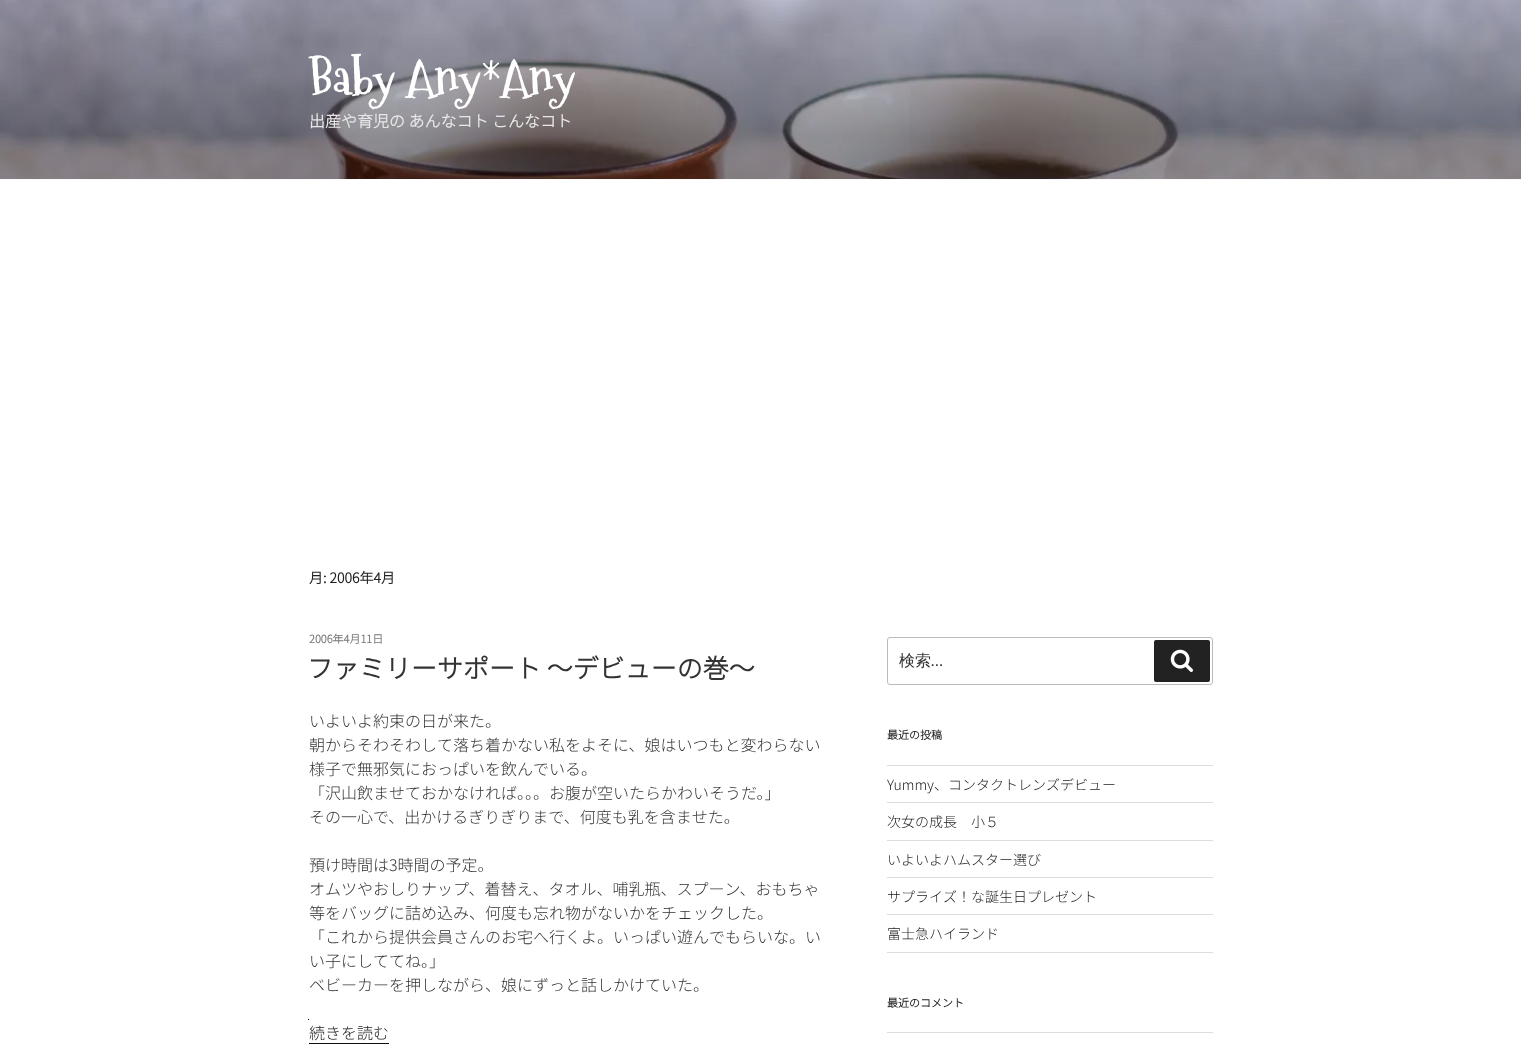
<!DOCTYPE html>
<meta charset="utf-8">
<style>body { margin: 0 } canvas { display: block }</style>
<canvas id="canvas" width="1521" height="1044"></canvas>
<img id="img1" src="img_01.png" hidden>
<img id="img2" src="img_02.png" hidden>
<script>
window.onload = function () {
	const canvas = document.getElementById("canvas");
	const ctx = canvas.getContext("2d");
	ctx.miterLimit = 4;
	ctx.fontKerning = "normal";
	function txt(s, x, y) {
		ctx.fillText(s, x, y);
	}
	function fill(x, y, w, h) {
		ctx.fillRect(x, y, w, h);
	}
	function round(x, y, w, h, r) {
		ctx.beginPath();
		ctx.roundRect(x, y, w, h, r);
		ctx.fill();
	}
	function img(id, x, y, w, h) {
		ctx.drawImage(document.getElementById(id), x, y, w, h);
	}

	ctx.fillStyle = "#FFFFFF";
	fill(0, 0, 1521, 1044);
	ctx.fillStyle = "#FAFAFA";
	fill(0, 179, 1521, 1);
	img("img1", 0, 0, 1521, 179);
	ctx.fillStyle = "#0F0F0F";
	fill(308, 1019, 1, 1);
	fill(309, 1043, 80, 1);
	ctx.beginPath();
	ctx.roundRect(887.5, 637.5, 325, 47, 2.5);
	ctx.strokeStyle = "#BBBBBB";
	ctx.stroke();
	ctx.fillStyle = "#222222";
	round(1154, 640, 56, 42, 2);
	img("img2", 1170, 649, 23, 23);
	ctx.fillStyle = "#DDDDDD";
	fill(887, 765, 326, 1);
	fill(887, 802, 326, 1);
	fill(887, 840, 326, 1);
	fill(887, 877, 326, 1);
	fill(887, 914, 326, 1);
	fill(887, 952, 326, 1);
	fill(887, 1032, 326, 1);
	ctx.font = "bold 48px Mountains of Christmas";
	ctx.fillStyle = "#FFFFFF";
	txt("Baby Any*Any", 309, 94);
	ctx.font = "bold 16px Noto Sans JP";
	ctx.fillStyle = "#E6E6E7";
	txt("出産や育児の あんなコト こんなコト", 309, 127);
	ctx.font = "bold 14px Noto Sans JP";
	ctx.fillStyle = "#222222";
	txt("月: 2006年4月", 309, 583);
	ctx.font = "bold 11px Noto Sans JP";
	ctx.fillStyle = "#767676";
	txt("2006年4月11日", 309, 643);
	ctx.font = "bold 26px Noto Sans JP";
	ctx.fillStyle = "#333333";
	txt("ファミリーサポート 〜デビューの巻〜", 307, 678);
	ctx.font = "100 16px Noto Sans JP";
	txt("いよいよ約束の日が来た。", 309, 727);
	txt("朝からそわそわして落ち着かない私をよそに、娘はいつもと変わらない", 309, 751);
	txt("様子で無邪気におっぱいを飲んでいる。", 309, 775);
	txt("「沢山飲ませておかなければ。。。お腹が空いたらかわいそうだ。」", 309, 799);
	txt("その一心で、出かけるぎりぎりまで、何度も乳を含ませた。", 309, 823);
	txt("預け時間は3時間の予定。", 309, 871);
	txt("オムツやおしりナップ、着替え、タオル、哺乳瓶、スプーン、おもちゃ", 309, 895);
	txt("等をバッグに詰め込み、何度も忘れ物がないかをチェックした。", 309, 919);
	txt("「これから提供会員さんのお宅へ行くよ。いっぱい遊んでもらいな。い", 309, 943);
	txt("い子にしててね。」", 309, 967);
	txt("ベビーカーを押しながら、娘にずっと話しかけていた。", 309, 991);
	ctx.fillStyle = "#222222";
	txt("続きを読む", 309, 1039);
	ctx.font = "500 16px WenQuanYi Zen Hei";
	ctx.fillStyle = "#333333";
	txt("検索", 899, 666);
	ctx.font = "16px Libre Franklin";
	txt("…", 931, 666);
	ctx.font = "bold 11px Noto Sans JP";
	ctx.fillStyle = "#222222";
	txt("最近の投稿", 887, 739);
	ctx.font = "100 14px Noto Sans JP";
	txt("Yummy、コンタクトレンズデビュー", 887, 790);
	txt("次女の成長　小５", 887, 827);
	txt("いよいよハムスター選び", 887, 865);
	txt("サプライズ！な誕生日プレゼント", 887, 902);
	txt("富士急ハイランド", 887, 939);
	ctx.font = "bold 11px Noto Sans JP";
	txt("最近のコメント", 887, 1007);
};
</script>
